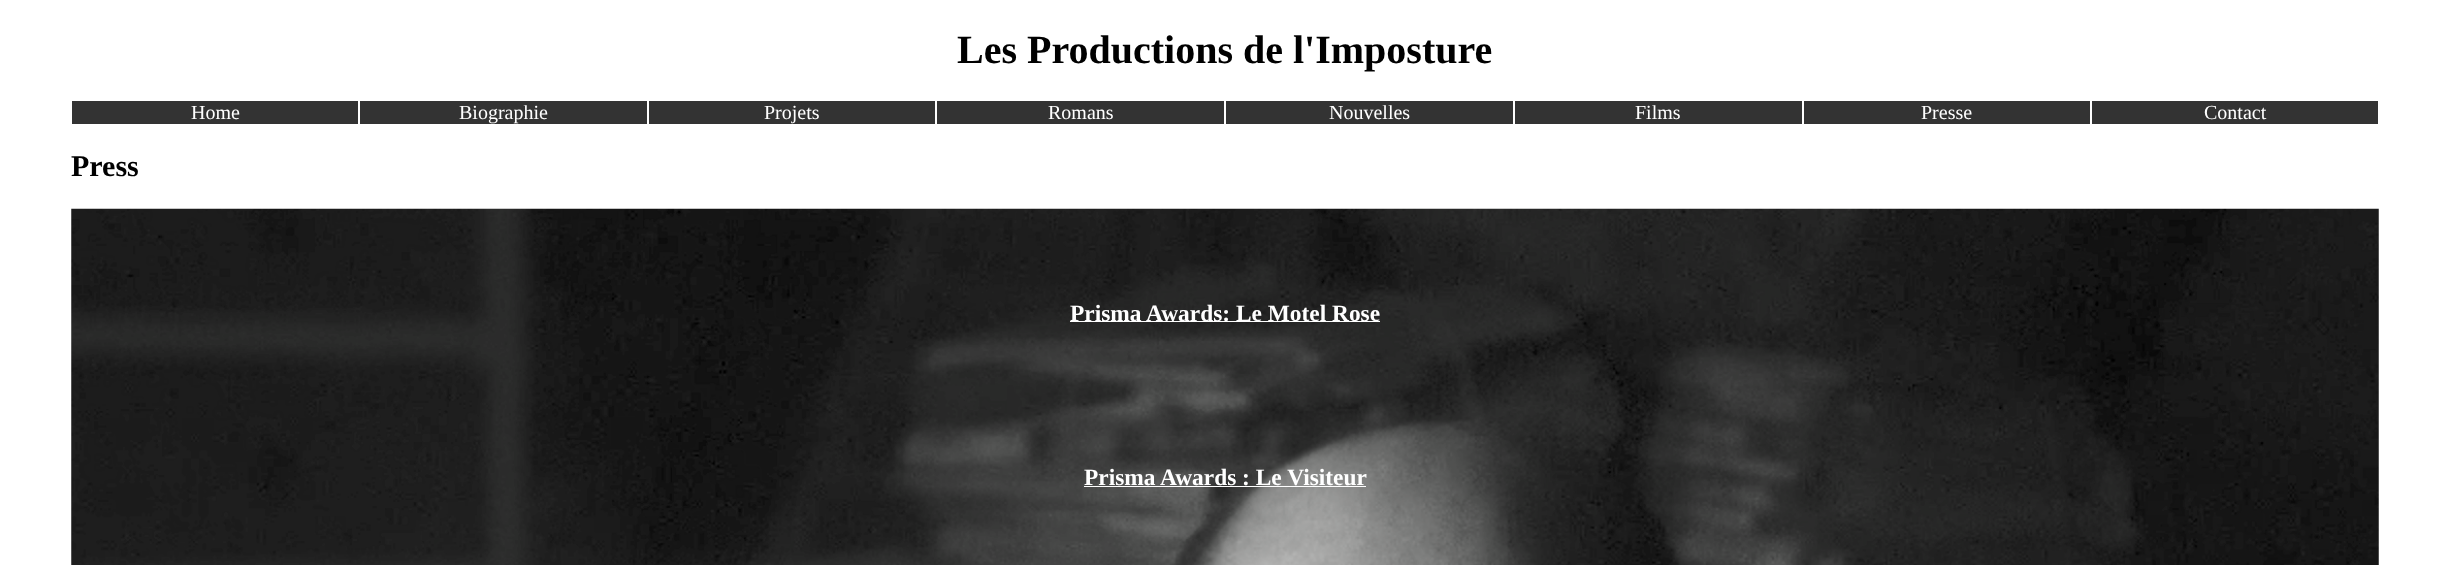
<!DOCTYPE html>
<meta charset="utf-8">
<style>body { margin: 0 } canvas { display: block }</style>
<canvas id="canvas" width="2449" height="565"></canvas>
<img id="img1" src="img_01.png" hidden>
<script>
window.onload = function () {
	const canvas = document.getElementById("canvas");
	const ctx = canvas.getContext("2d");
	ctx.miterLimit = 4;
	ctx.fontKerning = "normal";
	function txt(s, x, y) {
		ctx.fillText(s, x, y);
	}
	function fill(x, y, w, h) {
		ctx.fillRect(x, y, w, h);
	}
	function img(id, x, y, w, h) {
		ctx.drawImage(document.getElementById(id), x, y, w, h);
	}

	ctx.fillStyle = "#FFFFFF";
	fill(0, 0, 2449, 565);
	ctx.fillStyle = "#333333";
	fill(72, 101, 2306, 23);
	ctx.strokeStyle = "#FFFFFF";
	ctx.strokeRect(71.5, 100.5, 287, 24);
	ctx.strokeRect(359.5, 100.5, 288, 24);
	ctx.strokeRect(648.5, 100.5, 287, 24);
	ctx.strokeRect(936.5, 100.5, 288, 24);
	ctx.strokeRect(1225.5, 100.5, 288, 24);
	ctx.strokeRect(1514.5, 100.5, 288, 24);
	ctx.strokeRect(1803.5, 100.5, 287, 24);
	ctx.strokeRect(2091.5, 100.5, 287, 24);
	img("img1", 71, 208, 2308, 357);
	ctx.fillStyle = "#FFFFFF";
	fill(1070, 321, 310, 1);
	fill(1084, 486, 282, 1);
	ctx.font = "bold 40px Liberation Serif";
	ctx.fillStyle = "#000000";
	txt("Les Productions de l'Imposture", 957, 63);
	ctx.font = "20px Liberation Serif";
	ctx.fillStyle = "#FFFFFF";
	txt("Home", 191, 119);
	txt("Biographie", 459, 119);
	txt("Projets", 764, 119);
	txt("Romans", 1048, 119);
	txt("Nouvelles", 1329, 119);
	txt("Films", 1635, 119);
	txt("Presse", 1921, 119);
	txt("Contact", 2204, 119);
	ctx.font = "bold 30px Liberation Serif";
	ctx.fillStyle = "#000000";
	txt("Press", 71, 176);
	ctx.font = "bold 23.4px Liberation Serif";
	ctx.fillStyle = "#FFFFFF";
	txt("Prisma Awards: Le Motel Rose", 1070, 321);
	txt("Prisma Awards : Le Visiteur", 1084, 485);
};
</script>
